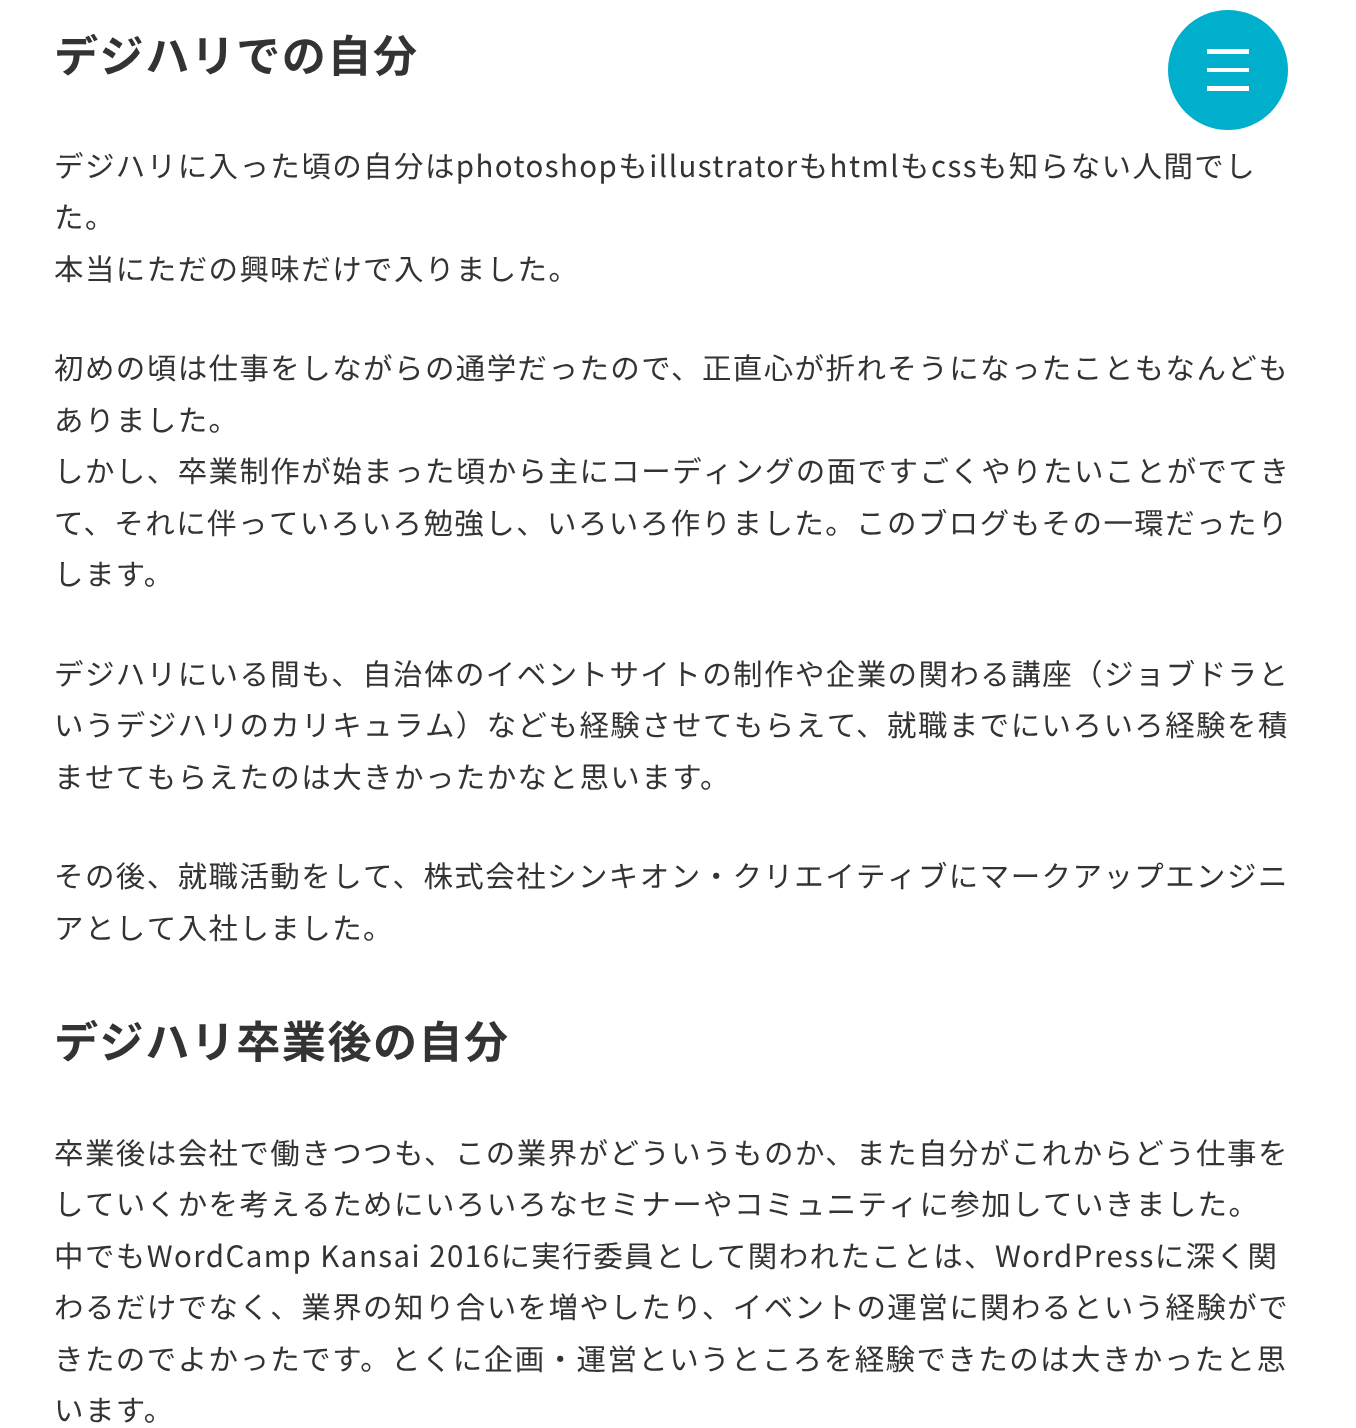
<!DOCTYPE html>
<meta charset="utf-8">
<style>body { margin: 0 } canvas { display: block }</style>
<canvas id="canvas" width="1356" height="1428"></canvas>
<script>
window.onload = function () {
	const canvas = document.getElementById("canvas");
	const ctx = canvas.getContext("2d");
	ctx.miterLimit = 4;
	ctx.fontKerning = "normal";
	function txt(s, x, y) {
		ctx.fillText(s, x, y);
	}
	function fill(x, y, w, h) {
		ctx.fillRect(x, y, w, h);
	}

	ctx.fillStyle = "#FFFFFF";
	fill(0, 0, 1356, 1428);
	ctx.fillStyle = "#00AFCC";
	ctx.beginPath();
	ctx.arc(1228, 70, 60, 0, Math.PI * 2);
	ctx.fill();
	ctx.fillStyle = "#FFFFFF";
	ctx.beginPath();
	ctx.moveTo(1207, 49);
	ctx.lineTo(1207, 54);
	ctx.lineTo(1249, 54);
	ctx.lineTo(1249, 49);
	ctx.closePath();
	ctx.moveTo(1207, 72);
	ctx.lineTo(1249, 72);
	ctx.lineTo(1249, 68);
	ctx.lineTo(1207, 68);
	ctx.closePath();
	ctx.moveTo(1207, 91);
	ctx.lineTo(1249, 91);
	ctx.lineTo(1249, 86);
	ctx.lineTo(1207, 86);
	ctx.closePath();
	ctx.fill();
	ctx.letterSpacing = "1.47px";
	ctx.font = "bold 44.1px Noto Sans JP";
	ctx.fillStyle = "#333333";
	txt("デジハリでの自分", 54, 72);
	ctx.font = "29.45px Noto Sans JP";
	txt("デジハリに入った頃の自分はphotoshopもillustratorもhtmlもcssも知らない人間でし", 54, 177);
	txt("た。", 54, 228);
	txt("本当にただの興味だけで入りました。", 54, 280);
	txt("初めの頃は仕事をしながらの通学だったので、正直心が折れそうになったこともなんども", 54, 379);
	txt("ありました。", 54, 431);
	txt("しかし、卒業制作が始まった頃から主にコーディングの面ですごくやりたいことがでてき", 54, 482);
	txt("て、それに伴っていろいろ勉強し、いろいろ作りました。このブログもその一環だったり", 54, 534);
	txt("します。", 54, 585);
	txt("デジハリにいる間も、自治体のイベントサイトの制作や企業の関わる講座（ジョブドラと", 54, 685);
	txt("いうデジハリのカリキュラム）なども経験させてもらえて、就職までにいろいろ経験を積", 54, 736);
	txt("ませてもらえたのは大きかったかなと思います。", 54, 788);
	txt("その後、就職活動をして、株式会社シンキオン・クリエイティブにマークアップエンジニ", 54, 887);
	txt("アとして入社しました。", 54, 939);
	ctx.font = "bold 44.1px Noto Sans JP";
	txt("デジハリ卒業後の自分", 54, 1058);
	ctx.font = "29.45px Noto Sans JP";
	txt("卒業後は会社で働きつつも、この業界がどういうものか、また自分がこれからどう仕事を", 54, 1164);
	txt("していくかを考えるためにいろいろなセミナーやコミュニティに参加していきました。", 54, 1215);
	txt("中でもWordCamp Kansai 2016に実行委員として関われたことは、WordPressに深く関", 54, 1267);
	txt("わるだけでなく、業界の知り合いを増やしたり、イベントの運営に関わるという経験がで", 54, 1318);
	txt("きたのでよかったです。とくに企画・運営というところを経験できたのは大きかったと思", 54, 1370);
	txt("います。", 54, 1421);
};
</script>
